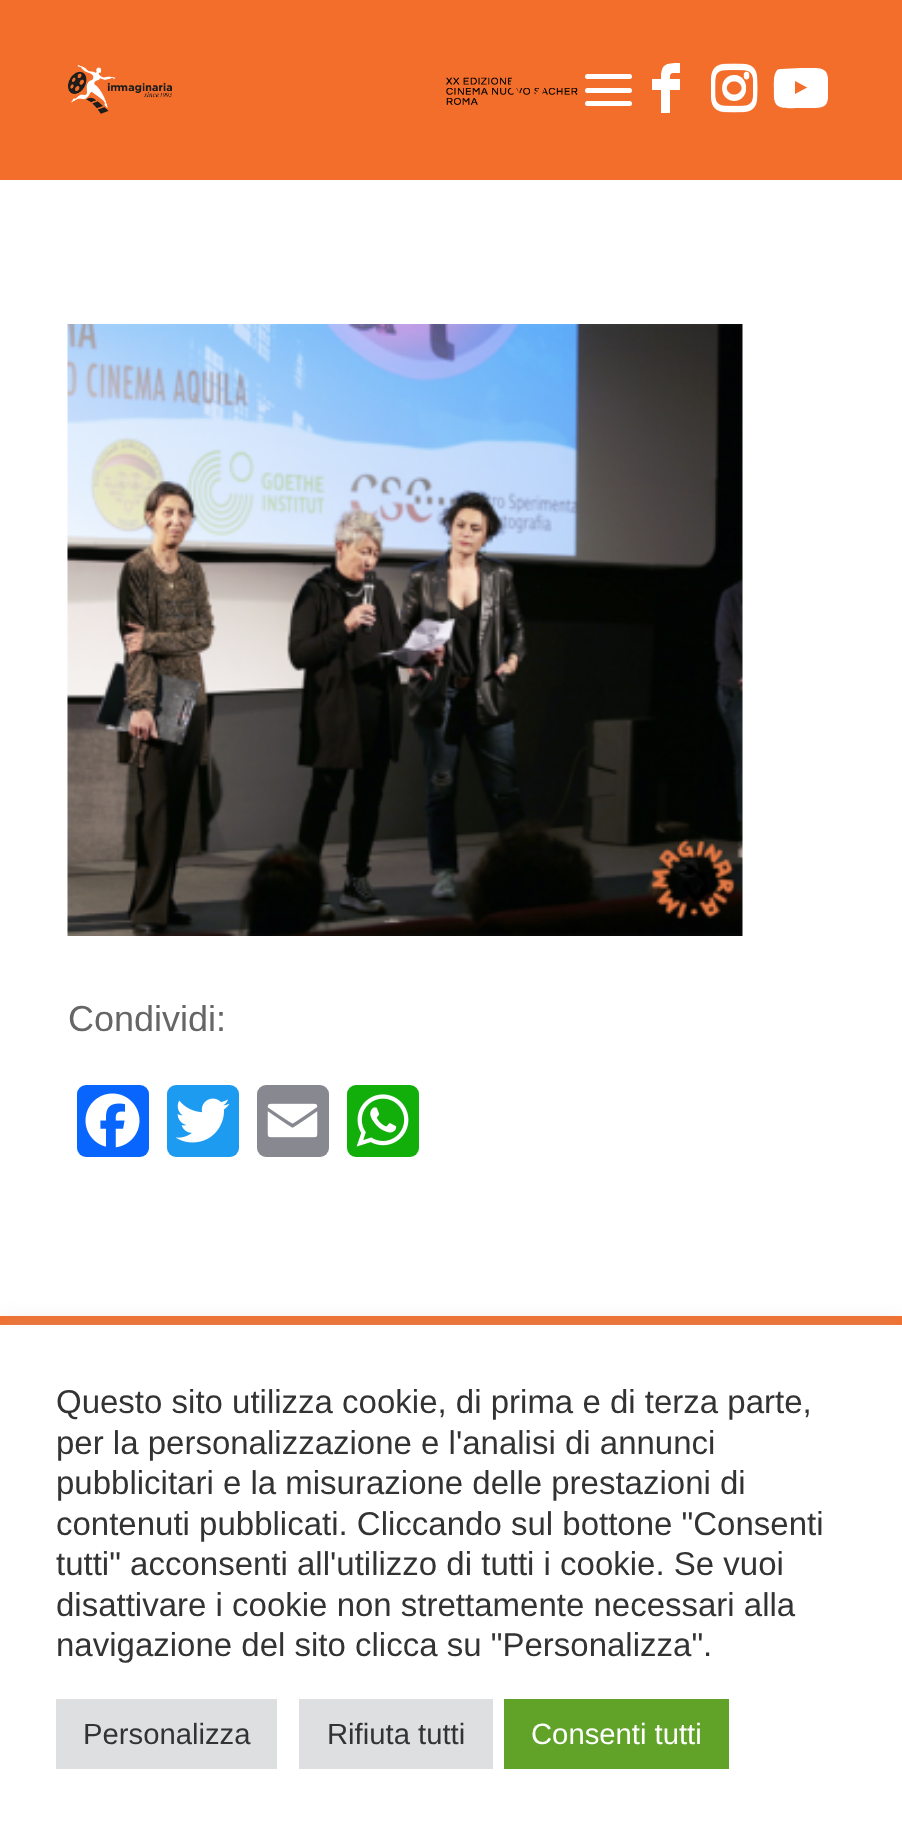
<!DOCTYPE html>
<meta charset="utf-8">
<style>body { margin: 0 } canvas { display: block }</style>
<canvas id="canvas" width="902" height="1834"></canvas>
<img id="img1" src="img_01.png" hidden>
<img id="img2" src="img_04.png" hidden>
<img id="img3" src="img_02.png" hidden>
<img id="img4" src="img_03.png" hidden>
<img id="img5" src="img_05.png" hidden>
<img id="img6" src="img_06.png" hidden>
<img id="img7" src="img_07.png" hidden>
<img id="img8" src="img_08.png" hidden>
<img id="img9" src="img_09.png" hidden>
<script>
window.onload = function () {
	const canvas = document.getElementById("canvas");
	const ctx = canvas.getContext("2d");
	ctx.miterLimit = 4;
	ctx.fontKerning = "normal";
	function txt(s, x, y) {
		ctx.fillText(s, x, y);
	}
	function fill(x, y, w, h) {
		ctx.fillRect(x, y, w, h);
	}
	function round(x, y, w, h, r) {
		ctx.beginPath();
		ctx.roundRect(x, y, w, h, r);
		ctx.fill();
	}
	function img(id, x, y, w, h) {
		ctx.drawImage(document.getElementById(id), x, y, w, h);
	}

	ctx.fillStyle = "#F46E2B";
	fill(0, 0, 902, 1834);
	img("img1", 68, 65, 510, 49);
	ctx.fillStyle = "#FFFFFF";
	ctx.beginPath();
	ctx.moveTo(680, 73);
	ctx.bezierCurveTo(669, 73, 670, 72, 670, 82);
	ctx.lineTo(680, 82);
	ctx.lineTo(680, 90);
	ctx.lineTo(670, 90);
	ctx.lineTo(670, 113);
	ctx.lineTo(661, 113);
	ctx.lineTo(661, 90);
	ctx.lineTo(652, 90);
	ctx.lineTo(652, 82);
	ctx.lineTo(661, 82);
	ctx.bezierCurveTo(661, 66, 665, 65, 680, 65);
	ctx.closePath();
	ctx.fill();
	ctx.beginPath();
	ctx.moveTo(680, 71);
	ctx.bezierCurveTo(669, 71, 670, 69, 670, 79);
	ctx.lineTo(680, 79);
	ctx.lineTo(680, 87);
	ctx.lineTo(670, 87);
	ctx.lineTo(670, 111);
	ctx.lineTo(661, 111);
	ctx.lineTo(661, 87);
	ctx.lineTo(652, 87);
	ctx.lineTo(652, 79);
	ctx.lineTo(661, 79);
	ctx.bezierCurveTo(661, 64, 665, 63, 680, 63);
	ctx.closePath();
	ctx.fill();
	img("img2", 711, 67, 47, 46);
	img("img3", 711, 63, 47, 46);
	ctx.beginPath();
	ctx.moveTo(795, 96);
	ctx.lineTo(810, 89);
	ctx.lineTo(795, 81);
	ctx.closePath();
	ctx.moveTo(801, 70);
	ctx.lineTo(816, 70);
	ctx.bezierCurveTo(829, 71, 828, 77, 828, 89);
	ctx.bezierCurveTo(828, 102, 829, 107, 816, 108);
	ctx.lineTo(799, 108);
	ctx.bezierCurveTo(794, 108, 782, 109, 778, 106);
	ctx.bezierCurveTo(773, 103, 774, 94, 774, 89);
	ctx.bezierCurveTo(774, 86, 773, 70, 781, 71);
	ctx.closePath();
	ctx.fill();
	ctx.beginPath();
	ctx.moveTo(795, 94);
	ctx.lineTo(810, 86);
	ctx.lineTo(795, 79);
	ctx.closePath();
	ctx.moveTo(801, 68);
	ctx.lineTo(816, 68);
	ctx.bezierCurveTo(829, 69, 828, 75, 828, 87);
	ctx.bezierCurveTo(828, 100, 829, 105, 816, 106);
	ctx.lineTo(799, 106);
	ctx.bezierCurveTo(794, 106, 782, 107, 778, 104);
	ctx.bezierCurveTo(773, 101, 774, 91, 774, 87);
	ctx.bezierCurveTo(774, 83, 773, 68, 781, 69);
	ctx.closePath();
	ctx.fill();
	img("img4", 510, 77, 35, 18);
	round(585, 88, 47, 5, 2.5);
	round(585, 74, 47, 5, 2.5);
	round(585, 101, 47, 5, 2.5);
	fill(0, 180, 902, 1136);
	img("img5", 67, 324, 676, 612);
	ctx.fillStyle = "#0866FF";
	round(77, 1085, 72, 72, 9);
	img("img6", 85, 1093, 55, 55);
	ctx.fillStyle = "#1D9BF0";
	round(167, 1085, 72, 72, 9);
	img("img7", 175, 1098, 55, 45);
	ctx.fillStyle = "#888990";
	round(257, 1085, 72, 72, 9);
	img("img8", 267, 1103, 51, 35);
	ctx.fillStyle = "#12AF0A";
	round(347, 1085, 72, 72, 9);
	img("img9", 356, 1094, 53, 53);
	ctx.fillStyle = "rgba(172, 171, 171, 0.3)";
	ctx.filter = "blur(11px)";
	ctx.beginPath();
	ctx.rect(0, 1323, 902, 511);
	ctx.fill();
	ctx.filter = "none";
	ctx.fillStyle = "#FFFFFF";
	fill(0, 1325, 902, 509);
	ctx.fillStyle = "#DEDFE0";
	fill(56, 1699, 221, 70);
	fill(299, 1699, 194, 70);
	ctx.fillStyle = "#61A229";
	fill(504, 1699, 225, 70);
	ctx.font = "36px Liberation Sans";
	ctx.fillStyle = "#666666";
	txt("Condividi:", 68, 1031);
	ctx.font = "33px Liberation Sans";
	ctx.fillStyle = "#333333";
	txt("Questo sito utilizza cookie, di prima e di terza parte,", 56, 1413);
	txt("per la personalizzazione e l'analisi di annunci", 56, 1454);
	txt("pubblicitari e la misurazione delle prestazioni di", 56, 1494);
	txt("contenuti pubblicati. Cliccando sul bottone \"Consenti", 56, 1535);
	txt("tutti\" acconsenti all'utilizzo di tutti i cookie. Se vuoi", 56, 1575);
	txt("disattivare i cookie non strettamente necessari alla", 56, 1616);
	txt("navigazione del sito clicca su \"Personalizza\".", 56, 1656);
	ctx.font = "29.25px Liberation Sans";
	txt("Personalizza", 83, 1744);
	txt("Rifiuta tutti", 327, 1744);
	ctx.fillStyle = "#FFFFFF";
	txt("Consenti tutti", 531, 1744);
};
</script>
